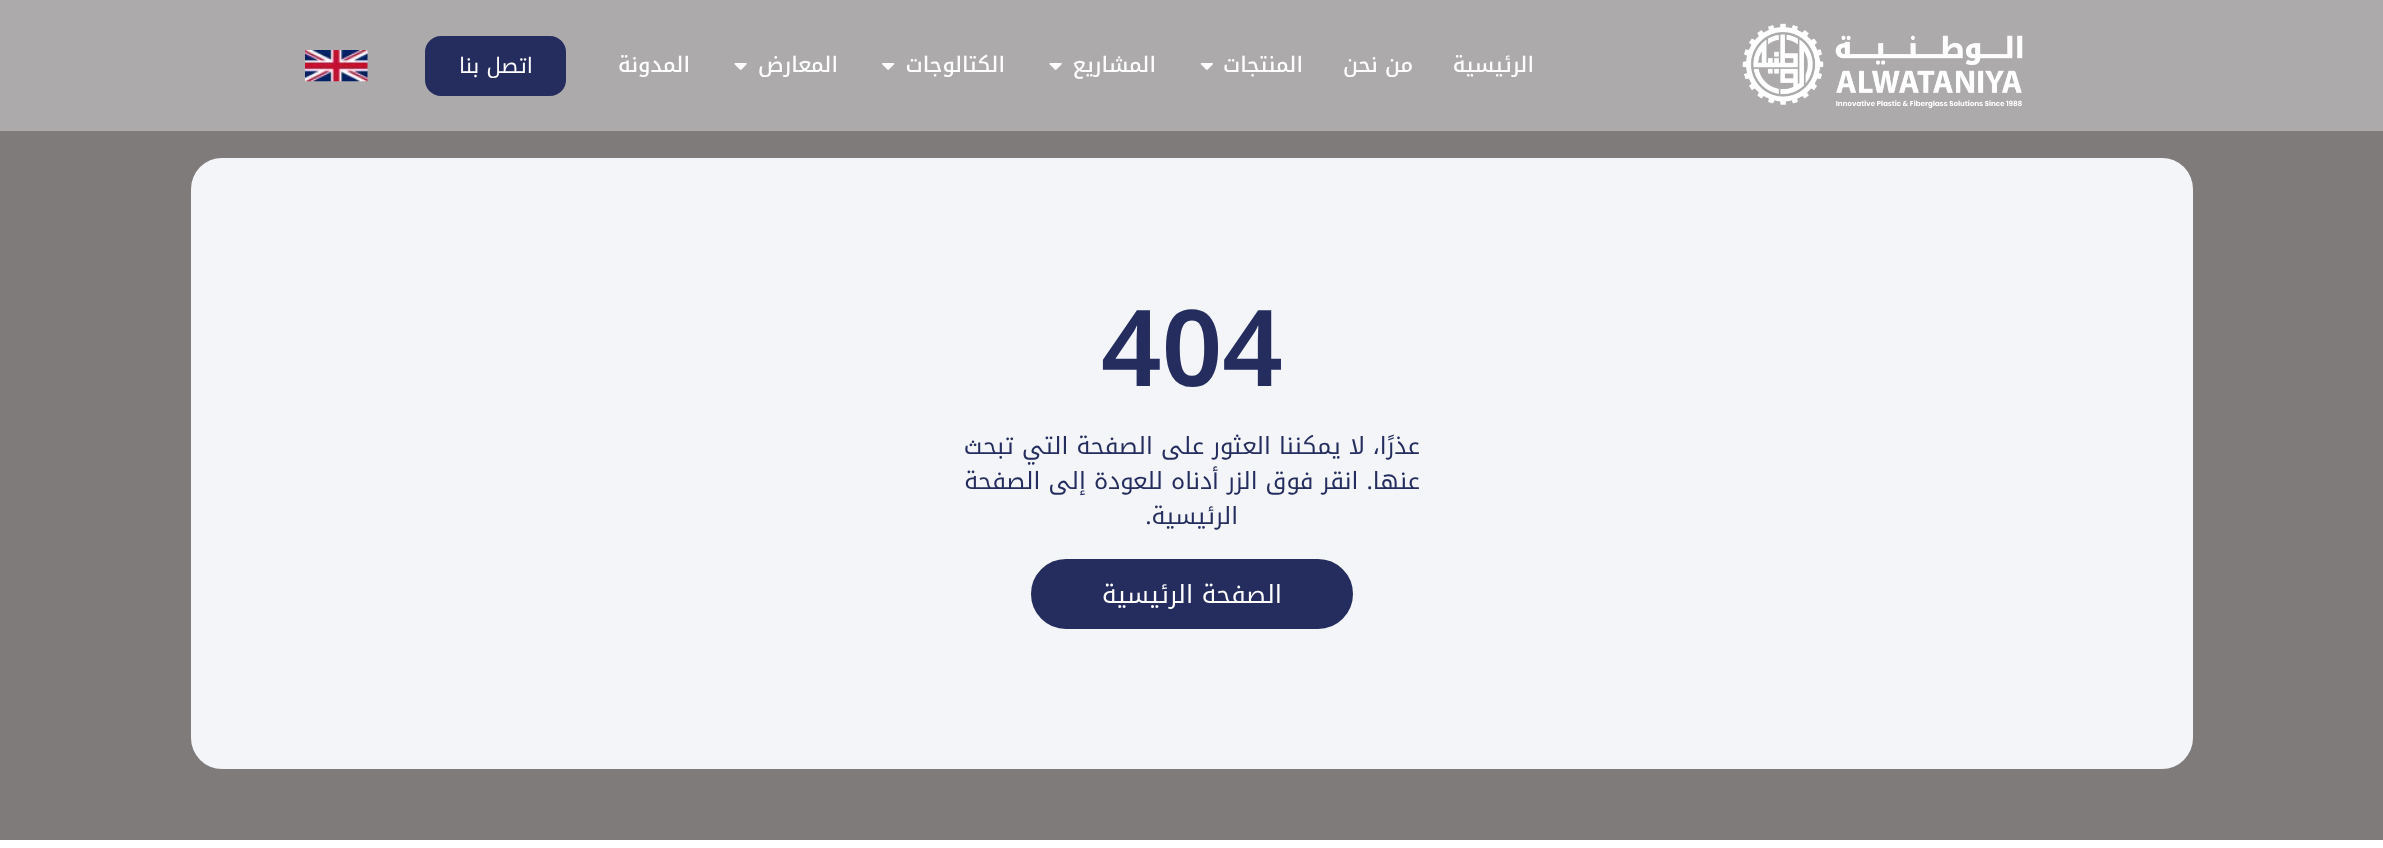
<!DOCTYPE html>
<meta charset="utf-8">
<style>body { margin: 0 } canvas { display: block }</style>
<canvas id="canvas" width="2383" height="848"></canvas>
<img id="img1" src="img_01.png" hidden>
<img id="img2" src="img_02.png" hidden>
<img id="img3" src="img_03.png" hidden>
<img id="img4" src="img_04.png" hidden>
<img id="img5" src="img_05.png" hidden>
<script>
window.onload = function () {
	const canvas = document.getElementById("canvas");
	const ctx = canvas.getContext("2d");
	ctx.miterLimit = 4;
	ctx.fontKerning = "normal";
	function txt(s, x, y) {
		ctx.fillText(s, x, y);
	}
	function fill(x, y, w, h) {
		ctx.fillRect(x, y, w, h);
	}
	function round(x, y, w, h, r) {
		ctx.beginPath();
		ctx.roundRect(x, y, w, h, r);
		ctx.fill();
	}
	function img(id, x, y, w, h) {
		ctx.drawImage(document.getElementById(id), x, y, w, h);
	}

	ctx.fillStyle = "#FFFFFF";
	fill(0, 0, 2383, 848);
	ctx.fillStyle = "#ACAAAA";
	fill(0, 0, 2383, 131);
	img("img1", 1742, 23, 281, 86);
	img("img2", 1200, 63, 13, 7);
	img("img3", 1049, 63, 13, 7);
	img("img4", 882, 63, 13, 7);
	img("img3", 734, 63, 13, 7);
	ctx.fillStyle = "#242D5E";
	ctx.beginPath();
	ctx.roundRect(426.5, 37.5, 138, 57, 14.5);
	ctx.fill();
	ctx.strokeStyle = "#242D5E";
	ctx.lineWidth = 3;
	ctx.stroke();
	img("img5", 305, 50, 63, 32);
	ctx.fillStyle = "#807B7B";
	fill(0, 131, 2383, 709);
	ctx.fillStyle = "#F3F5F8";
	round(191, 158, 2002, 611, 31);
	ctx.fillStyle = "#242D5E";
	ctx.beginPath();
	ctx.roundRect(1032.5, 560.5, 319, 67, 33.5);
	ctx.fill();
	ctx.stroke();
	ctx.direction = "rtl";
	ctx.font = "500 21.25px Noto Kufi Arabic";
	ctx.fillStyle = "#FFFFFF";
	txt("الرئيسية", 1534, 72);
	txt("من نحن", 1413, 72);
	txt("المنتجات", 1303, 72);
	txt("المشاريع", 1156, 72);
	txt("الكتالوجات", 1005, 72);
	txt("المعارض", 838, 72);
	txt("المدونة", 690, 72);
	ctx.font = "21.25px Noto Kufi Arabic";
	txt("اتصل بنا", 533, 73);
	ctx.direction = "ltr";
	ctx.font = "600 106px Noto Kufi Arabic";
	ctx.fillStyle = "#242D5E";
	txt("404", 1101, 386);
	ctx.direction = "rtl";
	ctx.font = "23.75px Noto Kufi Arabic";
	txt("عذرًا، لا يمكننا العثور على الصفحة التي تبحث", 1420, 454);
	txt("عنها. انقر فوق الزر أدناه للعودة إلى الصفحة", 1420, 489);
	txt("الرئيسية.", 1238, 524);
	ctx.font = "25px Noto Kufi Arabic";
	ctx.fillStyle = "#FFFFFF";
	txt("الصفحة الرئيسية", 1282, 603);
};
</script>
